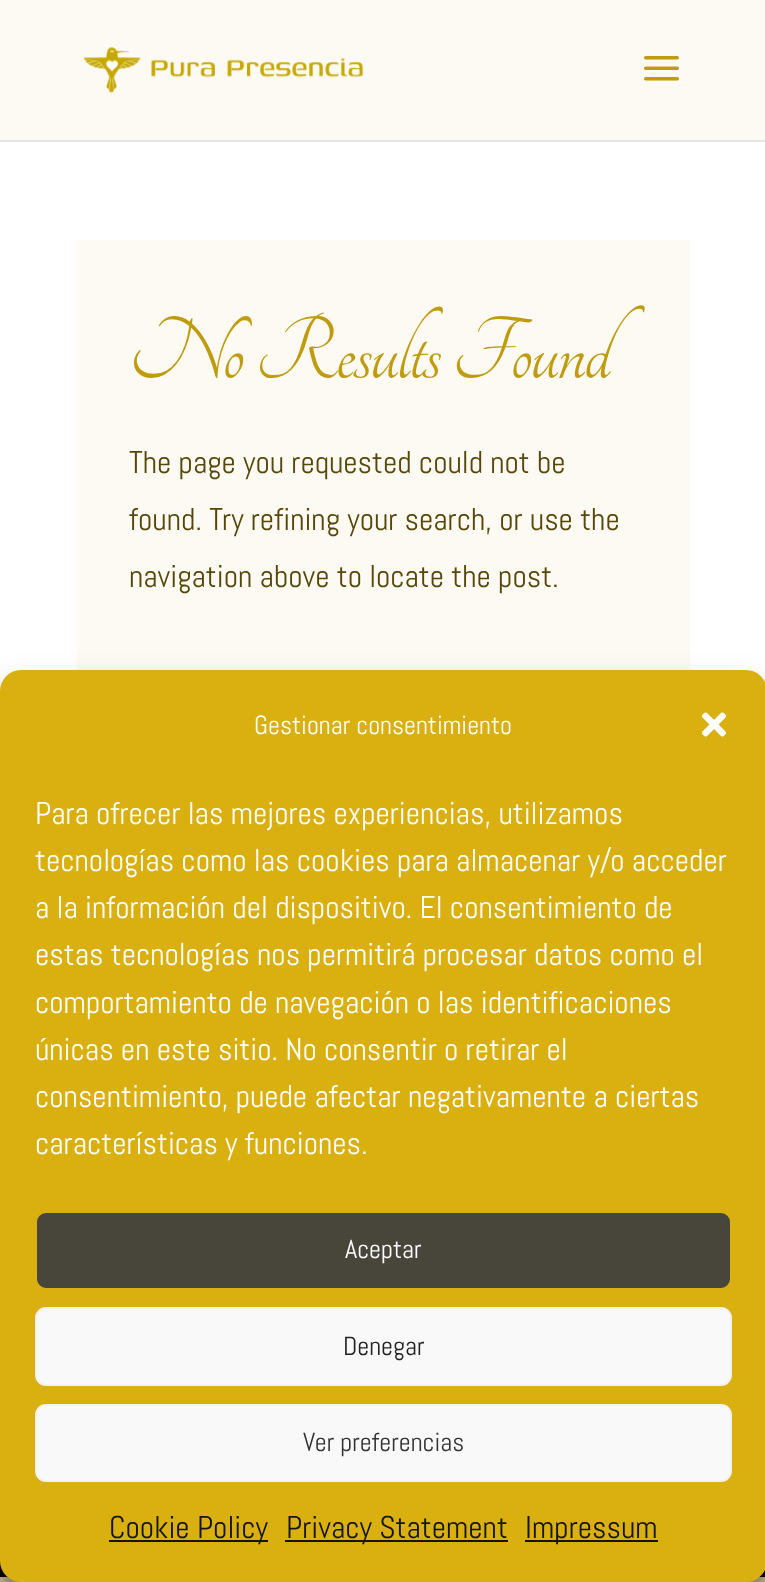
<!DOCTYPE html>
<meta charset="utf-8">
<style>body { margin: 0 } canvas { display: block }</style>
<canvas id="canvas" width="765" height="1582"></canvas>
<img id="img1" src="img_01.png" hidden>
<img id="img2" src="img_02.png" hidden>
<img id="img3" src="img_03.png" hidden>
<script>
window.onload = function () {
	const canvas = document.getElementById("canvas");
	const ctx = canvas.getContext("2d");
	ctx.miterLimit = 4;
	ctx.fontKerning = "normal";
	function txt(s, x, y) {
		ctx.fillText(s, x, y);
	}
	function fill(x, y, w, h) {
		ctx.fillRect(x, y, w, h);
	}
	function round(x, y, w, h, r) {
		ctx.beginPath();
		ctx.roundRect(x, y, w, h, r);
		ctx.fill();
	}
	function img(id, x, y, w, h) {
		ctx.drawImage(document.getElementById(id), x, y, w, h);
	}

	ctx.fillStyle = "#FFFFFF";
	fill(0, 0, 765, 1582);
	ctx.fillStyle = "#E6E6E6";
	ctx.beginPath();
	ctx.moveTo(0, 140);
	ctx.lineTo(0, 142);
	ctx.lineTo(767, 142);
	ctx.lineTo(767, 2);
	ctx.lineTo(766, 2);
	ctx.lineTo(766, 140);
	ctx.closePath();
	ctx.fill();
	ctx.fillStyle = "#FCFAF2";
	fill(0, 0, 765, 140);
	img("img1", 84, 47, 280, 47);
	img("img2", 644, 56, 35, 25);
	fill(77, 240, 613, 430);
	ctx.fillStyle = "#D6C6A2";
	fill(0, 1577, 765, 5);
	ctx.fillStyle = "#0A0000";
	fill(0, 1561, 765, 16);
	ctx.fillStyle = "rgba(0, 0, 0, 0.23)";
	ctx.filter = "blur(5px)";
	ctx.beginPath();
	ctx.roundRect(0, 681, 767, 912, 21);
	ctx.fill();
	ctx.filter = "none";
	ctx.fillStyle = "rgba(0, 0, 0, 0.19)";
	ctx.filter = "blur(17.5px)";
	ctx.beginPath();
	ctx.roundRect(0, 688, 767, 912, 21);
	ctx.fill();
	ctx.filter = "none";
	ctx.fillStyle = "#D9B010";
	round(0, 670, 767, 912, 21);
	img("img3", 702, 712, 24, 25);
	ctx.fillStyle = "#48463B";
	ctx.beginPath();
	ctx.roundRect(36, 1212, 695, 77, 10);
	ctx.fill();
	ctx.strokeStyle = "#D9B010";
	ctx.lineWidth = 2;
	ctx.stroke();
	ctx.fillStyle = "#F9F9F9";
	ctx.beginPath();
	ctx.roundRect(36, 1308, 695, 77, 10);
	ctx.fill();
	ctx.strokeStyle = "#F2F2F2";
	ctx.stroke();
	ctx.beginPath();
	ctx.roundRect(36, 1405, 695, 76, 10);
	ctx.fill();
	ctx.stroke();
	ctx.fillStyle = "#141413";
	fill(109, 1540, 159, 2);
	fill(285, 1540, 223, 2);
	fill(525, 1540, 133, 2);
	ctx.letterSpacing = "-1.75px";
	ctx.font = "96.25px Tangerine";
	ctx.fillStyle = "#C09B0E";
	txt("No Results Found", 129, 378);
	ctx.letterSpacing = "0px";
	ctx.font = "31.5px Abel";
	ctx.fillStyle = "#564708";
	txt("The page you requested could not be", 129, 473);
	txt("found. Try refining your search, or use the", 129, 530);
	txt("navigation above to locate the post.", 129, 587);
	ctx.font = "26.25px Abel";
	ctx.fillStyle = "#FFFFFF";
	txt("Gestionar consentimiento", 254, 734);
	ctx.font = "31.5px Abel";
	txt("Para ofrecer las mejores experiencias, utilizamos", 35, 824);
	txt("tecnologías como las cookies para almacenar y/o acceder", 35, 871);
	txt("a la información del dispositivo. El consentimiento de", 35, 918);
	txt("estas tecnologías nos permitirá procesar datos como el", 35, 965);
	txt("comportamiento de navegación o las identificaciones", 35, 1013);
	txt("únicas en este sitio. No consentir o retirar el", 35, 1060);
	txt("consentimiento, puede afectar negativamente a ciertas", 35, 1107);
	txt("características y funciones.", 35, 1154);
	ctx.font = "26.25px Abel";
	txt("Aceptar", 345, 1258);
	ctx.fillStyle = "#222222";
	txt("Denegar", 343, 1355);
	ctx.fillStyle = "#333333";
	txt("Ver preferencias", 303, 1451);
	ctx.font = "31.5px Abel";
	ctx.fillStyle = "#141413";
	txt("Cookie Policy", 109, 1538);
	txt("Privacy Statement", 286, 1538);
	txt("Impressum", 525, 1538);
};
</script>
